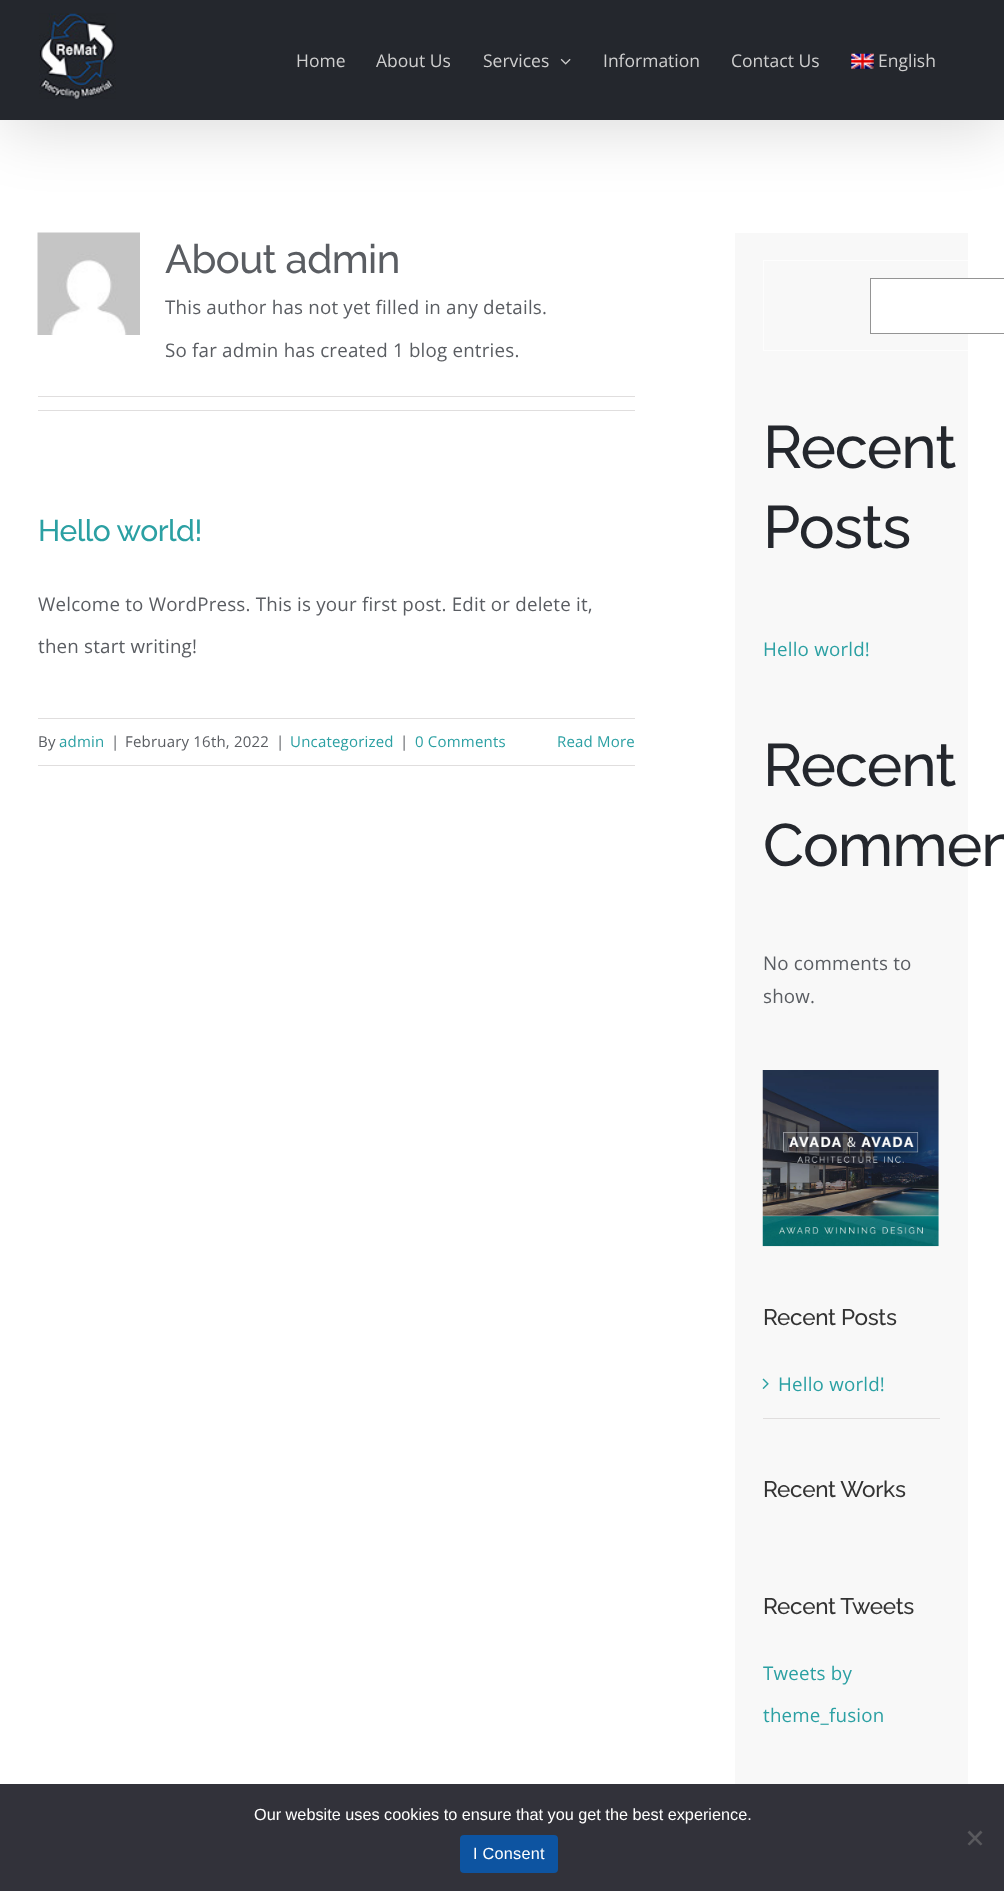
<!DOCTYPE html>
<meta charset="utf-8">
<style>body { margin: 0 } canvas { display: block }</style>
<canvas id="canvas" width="1004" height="1891"></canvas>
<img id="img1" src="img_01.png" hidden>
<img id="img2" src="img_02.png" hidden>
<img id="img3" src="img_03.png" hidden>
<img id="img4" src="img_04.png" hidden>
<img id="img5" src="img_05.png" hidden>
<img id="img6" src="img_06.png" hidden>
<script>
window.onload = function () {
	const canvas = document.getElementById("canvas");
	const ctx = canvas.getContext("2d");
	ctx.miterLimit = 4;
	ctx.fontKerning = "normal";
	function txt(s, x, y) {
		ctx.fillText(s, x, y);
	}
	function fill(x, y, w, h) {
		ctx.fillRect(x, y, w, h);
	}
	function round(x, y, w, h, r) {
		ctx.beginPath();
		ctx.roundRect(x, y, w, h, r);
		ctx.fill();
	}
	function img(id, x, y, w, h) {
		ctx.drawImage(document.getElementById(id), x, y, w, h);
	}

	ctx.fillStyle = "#FFFFFF";
	fill(0, 0, 1004, 1891);
	ctx.fillStyle = "rgba(0, 0, 0, 0.14)";
	ctx.filter = "blur(31px)";
	ctx.beginPath();
	ctx.rect(3, 15, 1000, 115);
	ctx.fill();
	ctx.filter = "none";
	ctx.fillStyle = "#24272D";
	fill(0, 0, 1004, 120);
	img("img1", 39, 13, 77, 86);
	img("img2", 560, 58, 11, 7);
	img("img3", 851, 53, 23, 16);
	img("img4", 37, 232, 103, 103);
	ctx.fillStyle = "#E0DEDE";
	fill(38, 396, 597, 1);
	fill(38, 410, 597, 1);
	fill(38, 718, 597, 1);
	fill(38, 765, 597, 1);
	ctx.fillStyle = "#F8F8F8";
	fill(735, 233, 233, 1551);
	ctx.strokeStyle = "rgba(255, 255, 255, 0.75)";
	ctx.strokeRect(763.5, 260.5, 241, 90);
	ctx.fillStyle = "#FFFFFF";
	fill(871, 279, 97, 54);
	ctx.strokeStyle = "#949494";
	ctx.strokeRect(870.5, 278.5, 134, 55);
	img("img5", 762, 1070, 177, 177);
	ctx.fillStyle = "#E0DEDE";
	fill(763, 1418, 177, 1);
	img("img6", 762, 1378, 7, 11);
	ctx.fillStyle = "#32323A";
	fill(0, 1784, 1004, 107);
	ctx.fillStyle = "#59595D";
	ctx.beginPath();
	ctx.moveTo(980.5, 1830.5);
	ctx.lineTo(982.5, 1832.5);
	ctx.lineTo(969.5, 1845.5);
	ctx.lineTo(967.5, 1844);
	ctx.closePath();
	ctx.fill();
	ctx.beginPath();
	ctx.moveTo(967.5, 1832.5);
	ctx.lineTo(969.5, 1830.5);
	ctx.lineTo(982.5, 1844);
	ctx.lineTo(980.5, 1845.5);
	ctx.closePath();
	ctx.fill();
	ctx.fillStyle = "#0D54A1";
	round(460, 1835, 98, 38, 4);
	ctx.font = "17.5px Open Sans";
	ctx.fillStyle = "#CFCFCF";
	txt("Home", 296, 67);
	txt("About Us", 376, 67);
	txt("Services", 483, 67);
	txt("Information", 603, 67);
	txt("Contact Us", 731, 67);
	txt("English", 878, 67);
	ctx.letterSpacing = "-0.6px";
	ctx.font = "100 40px Raleway";
	ctx.fillStyle = "#5A5D62";
	txt("About admin", 165, 273);
	ctx.letterSpacing = "0.2px";
	ctx.font = "18.75px Open Sans";
	txt("This author has not yet filled in any details.", 165, 314);
	txt("So far admin has created 1 blog entries.", 165, 357);
	ctx.letterSpacing = "-0.5px";
	ctx.font = "100 30px Raleway";
	ctx.fillStyle = "#2BA0A3";
	txt("Hello world!", 38, 541);
	ctx.letterSpacing = "0.2px";
	ctx.font = "18.75px Open Sans";
	ctx.fillStyle = "#5A5D62";
	txt("Welcome to WordPress. This is your first post. Edit or delete it,", 38, 611);
	txt("then start writing!", 38, 653);
	ctx.font = "15px Open Sans";
	txt("By", 38, 747);
	ctx.fillStyle = "#2BA0A3";
	txt("admin", 59, 747);
	ctx.fillStyle = "#5A5D62";
	txt("|", 111, 747);
	txt("February 16th, 2022", 125, 747);
	txt("|", 276, 747);
	ctx.fillStyle = "#2BA0A3";
	txt("Uncategorized", 290, 747);
	ctx.fillStyle = "#5A5D62";
	txt("|", 400, 747);
	ctx.fillStyle = "#2BA0A3";
	txt("0 Comments", 415, 747);
	txt("Read More", 557, 747);
	ctx.letterSpacing = "-1px";
	ctx.font = "100 60px Raleway";
	ctx.fillStyle = "#24272D";
	txt("Recent", 763, 468);
	txt("Posts", 763, 548);
	ctx.letterSpacing = "0.2px";
	ctx.font = "18.75px Open Sans";
	ctx.fillStyle = "#2BA0A3";
	txt("Hello world!", 763, 656);
	ctx.letterSpacing = "-1px";
	ctx.font = "100 60px Raleway";
	ctx.fillStyle = "#24272D";
	txt("Recent", 763, 786);
	txt("Commen", 763, 866);
	ctx.letterSpacing = "0.2px";
	ctx.font = "18.75px Open Sans";
	ctx.fillStyle = "#5A5D62";
	txt("No comments to", 763, 970);
	txt("show.", 763, 1003);
	ctx.letterSpacing = "-0.3px";
	ctx.font = "100 22.5px Raleway";
	ctx.fillStyle = "#333333";
	txt("Recent Posts", 763, 1325);
	ctx.letterSpacing = "0.2px";
	ctx.font = "18.75px Open Sans";
	ctx.fillStyle = "#2BA0A3";
	txt("Hello world!", 778, 1391);
	ctx.letterSpacing = "-0.3px";
	ctx.font = "100 22.5px Raleway";
	ctx.fillStyle = "#333333";
	txt("Recent Works", 763, 1497);
	txt("Recent Tweets", 763, 1614);
	ctx.letterSpacing = "0.2px";
	ctx.font = "18.75px Open Sans";
	ctx.fillStyle = "#2BA0A3";
	txt("Tweets by", 763, 1680);
	txt("theme_fusion", 763, 1722);
	ctx.letterSpacing = "0px";
	ctx.font = "16.25px Liberation Sans";
	ctx.fillStyle = "#FFFFFF";
	txt("Our website uses cookies to ensure that you get the best experience.", 254, 1820);
	ctx.letterSpacing = "0.25px";
	txt("I Consent", 473, 1859);
};
</script>
